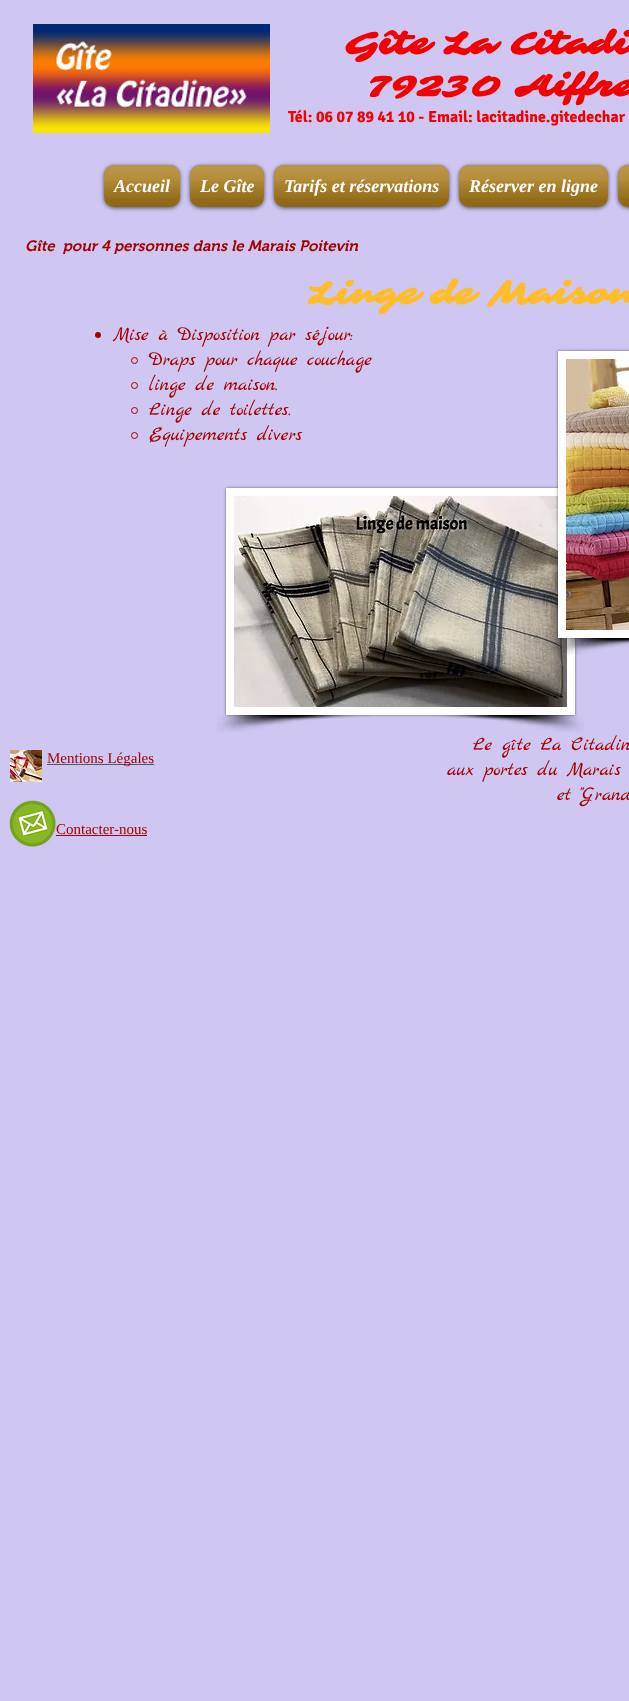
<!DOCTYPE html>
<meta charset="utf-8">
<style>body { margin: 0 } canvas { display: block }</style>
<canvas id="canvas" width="629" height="1701"></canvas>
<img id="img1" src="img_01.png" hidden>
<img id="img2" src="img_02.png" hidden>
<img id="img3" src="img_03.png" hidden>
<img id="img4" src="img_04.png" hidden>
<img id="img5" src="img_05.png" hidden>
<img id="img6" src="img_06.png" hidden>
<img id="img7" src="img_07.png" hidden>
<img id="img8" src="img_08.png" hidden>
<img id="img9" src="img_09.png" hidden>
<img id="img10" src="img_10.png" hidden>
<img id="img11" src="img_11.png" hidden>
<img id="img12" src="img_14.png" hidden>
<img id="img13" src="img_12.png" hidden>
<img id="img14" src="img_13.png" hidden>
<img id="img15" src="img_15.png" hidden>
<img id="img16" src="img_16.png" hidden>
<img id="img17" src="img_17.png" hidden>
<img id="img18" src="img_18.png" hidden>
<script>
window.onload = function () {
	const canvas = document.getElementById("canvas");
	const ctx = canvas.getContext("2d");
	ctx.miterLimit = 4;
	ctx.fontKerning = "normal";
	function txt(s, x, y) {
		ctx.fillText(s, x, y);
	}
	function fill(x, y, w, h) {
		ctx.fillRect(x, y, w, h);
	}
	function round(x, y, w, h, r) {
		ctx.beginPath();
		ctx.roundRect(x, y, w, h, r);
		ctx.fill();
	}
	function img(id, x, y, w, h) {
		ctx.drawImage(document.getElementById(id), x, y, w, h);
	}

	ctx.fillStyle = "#CFC7F2";
	fill(0, 0, 629, 1701);
	img("img1", 33, 24, 237, 109);
	ctx.fillStyle = "rgba(0, 0, 0, 0.6)";
	ctx.filter = "blur(2px)";
	ctx.beginPath();
	ctx.roundRect(104, 166, 76, 42, 10);
	ctx.fill();
	ctx.filter = "none";
	ctx.fillStyle = "#AA7D1D";
	round(104, 165, 76, 42, 10);
	img("img2", 104, 165, 76, 33);
	img("img3", 104, 181, 76, 26);
	ctx.fillStyle = "rgba(0, 0, 0, 0.6)";
	ctx.filter = "blur(2px)";
	ctx.beginPath();
	ctx.roundRect(190, 166, 74, 42, 10);
	ctx.fill();
	ctx.filter = "none";
	ctx.fillStyle = "#AA7D1D";
	round(190, 165, 74, 42, 10);
	img("img4", 190, 165, 74, 33);
	img("img5", 190, 181, 74, 26);
	ctx.fillStyle = "rgba(0, 0, 0, 0.6)";
	ctx.filter = "blur(2px)";
	ctx.beginPath();
	ctx.roundRect(274, 166, 175, 42, 10);
	ctx.fill();
	ctx.filter = "none";
	ctx.fillStyle = "#AA7D1D";
	round(274, 165, 175, 42, 10);
	img("img6", 274, 165, 175, 33);
	img("img7", 274, 181, 175, 26);
	ctx.fillStyle = "rgba(0, 0, 0, 0.6)";
	ctx.filter = "blur(2px)";
	ctx.beginPath();
	ctx.roundRect(459, 166, 149, 42, 10);
	ctx.fill();
	ctx.filter = "none";
	ctx.fillStyle = "#AA7D1D";
	round(459, 165, 149, 42, 10);
	img("img8", 459, 165, 149, 33);
	img("img9", 459, 181, 149, 26);
	ctx.fillStyle = "rgba(0, 0, 0, 0.6)";
	ctx.filter = "blur(2px)";
	ctx.beginPath();
	ctx.roundRect(618, 166, 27, 42, 10);
	ctx.fill();
	ctx.filter = "none";
	ctx.fillStyle = "#AA7D1D";
	round(618, 165, 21, 42, 10);
	img("img10", 618, 165, 11, 33);
	img("img11", 618, 181, 11, 26);
	ctx.fillStyle = "#A30000";
	ctx.beginPath();
	ctx.arc(98, 335, 3, 0, Math.PI * 2);
	ctx.fill();
	ctx.beginPath();
	ctx.arc(134.5, 360.5, 3, 0, Math.PI * 2);
	ctx.strokeStyle = "#A30000";
	ctx.stroke();
	ctx.beginPath();
	ctx.arc(134.5, 385.5, 3, 0, Math.PI * 2);
	ctx.stroke();
	ctx.beginPath();
	ctx.arc(134.5, 410.5, 3, 0, Math.PI * 2);
	ctx.stroke();
	ctx.beginPath();
	ctx.arc(134.5, 435.5, 3, 0, Math.PI * 2);
	ctx.stroke();
	ctx.fillStyle = "rgba(0, 0, 0, 0.5)";
	ctx.filter = "blur(1.5px)";
	ctx.beginPath();
	ctx.rect(226, 488, 349, 227);
	ctx.fill();
	ctx.filter = "none";
	ctx.fillStyle = "#FFFFFF";
	fill(226, 488, 349, 227);
	img("img12", 234, 496, 333, 211);
	ctx.fillStyle = "rgba(0, 0, 0, 0.5)";
	ctx.filter = "blur(1.5px)";
	ctx.beginPath();
	ctx.rect(558, 351, 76, 287);
	ctx.fill();
	ctx.filter = "none";
	ctx.fillStyle = "#FFFFFF";
	fill(558, 351, 71, 287);
	img("img13", 566, 359, 63, 271);
	img("img14", 550, 638, 79, 17);
	img("img15", 217, 715, 154, 18);
	img("img16", 430, 715, 154, 18);
	img("img17", 10, 750, 32, 32);
	ctx.fillStyle = "#4A5868";
	fill(47, 764, 107, 1);
	img("img18", 9, 800, 47, 47);
	ctx.fillStyle = "#A30000";
	fill(56, 835, 91, 1);
	ctx.font = "bold 32px Sarina";
	ctx.fillStyle = "#F50000";
	txt("Gîte La Citadi", 343, 54);
	txt("79230 Aiffre", 366, 96);
	ctx.font = "bold 16px Signika";
	txt("Tél: 06 07 89 41 10 - Email: lacitadine.gitedechar", 288, 122);
	ctx.font = "italic bold 18px Liberation Serif";
	ctx.fillStyle = "#FFFFFF";
	txt("Accueil", 114, 192);
	txt("Le Gîte", 200, 192);
	txt("Tarifs et réservations", 284, 192);
	txt("Réserver en ligne", 469, 192);
	ctx.font = "italic 600 15px 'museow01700'";
	ctx.fillStyle = "#A30000";
	txt("Gîte  pour 4 personnes dans le Marais Poitevin", 25, 251);
	ctx.font = "bold 32px Sarina";
	ctx.fillStyle = "#FFBC2B";
	txt("Linge de Maison", 308, 304);
	ctx.font = "20px Marck Script";
	ctx.fillStyle = "#A30000";
	txt("Mise à Disposition par séjour:", 113, 340);
	txt("Draps pour chaque couchage", 149, 365);
	txt("linge de maison.", 149, 390);
	txt("Linge de toilettes.", 149, 415);
	txt("Equipements divers", 149, 440);
	ctx.font = "15px Liberation Serif";
	txt("Mentions Légales", 47, 763);
	ctx.font = "20px Marck Script";
	txt("Le gîte La Citadin", 473, 750);
	txt("aux portes du Marais", 447, 775);
	txt("et \"Grand", 557, 800);
	ctx.font = "15px Liberation Serif";
	txt("Contacter-nous", 56, 834);
};
</script>
